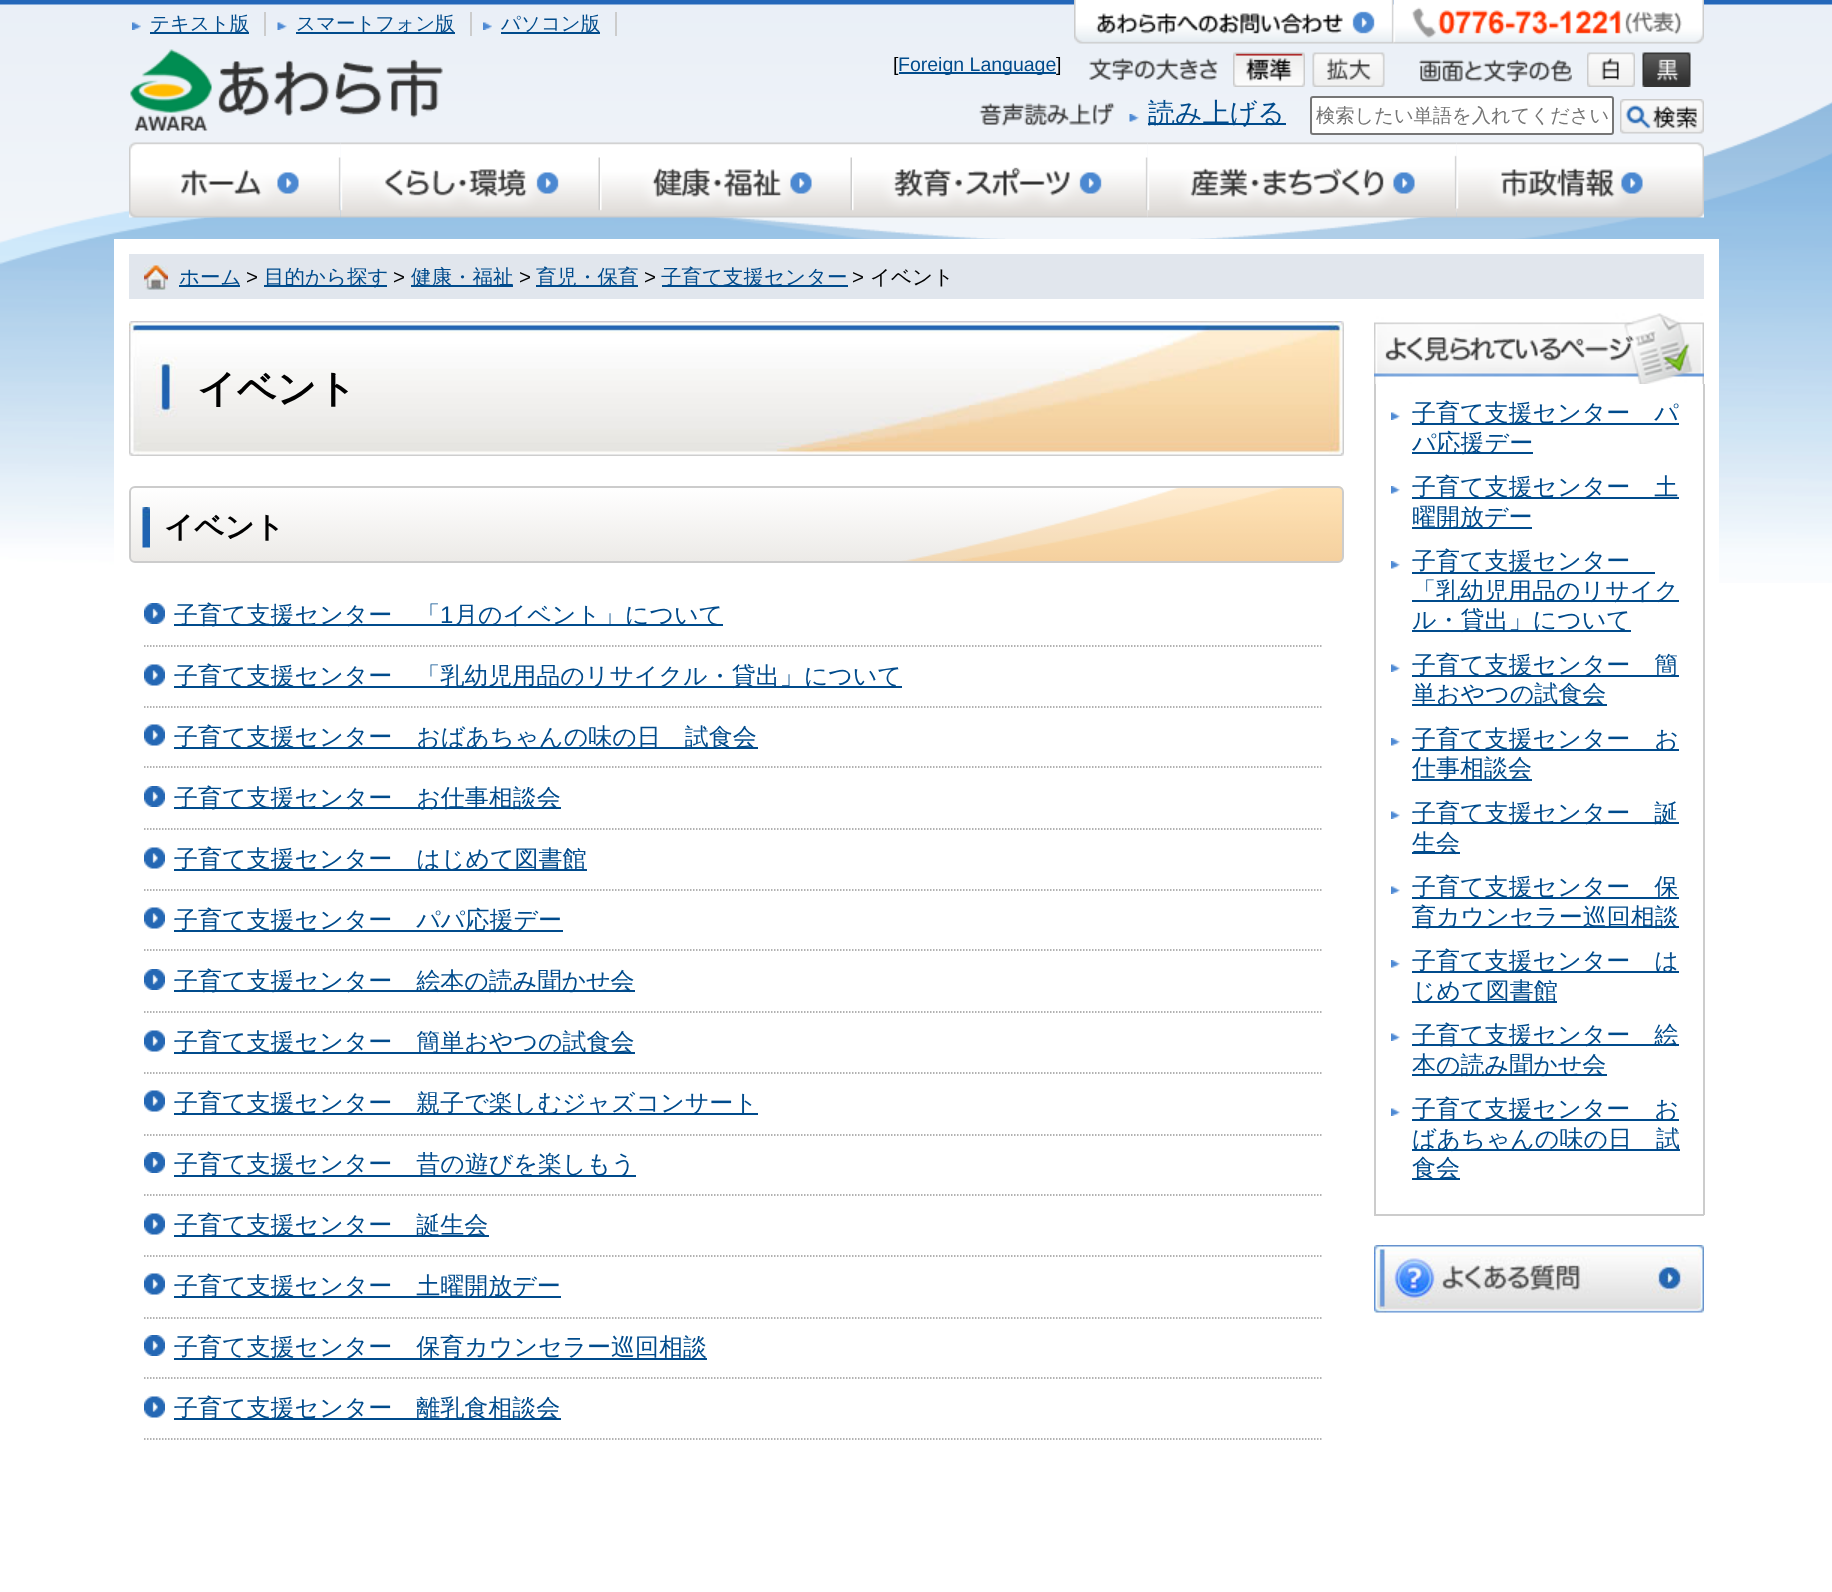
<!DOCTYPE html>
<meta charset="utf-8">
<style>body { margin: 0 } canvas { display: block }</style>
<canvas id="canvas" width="1832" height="1592"></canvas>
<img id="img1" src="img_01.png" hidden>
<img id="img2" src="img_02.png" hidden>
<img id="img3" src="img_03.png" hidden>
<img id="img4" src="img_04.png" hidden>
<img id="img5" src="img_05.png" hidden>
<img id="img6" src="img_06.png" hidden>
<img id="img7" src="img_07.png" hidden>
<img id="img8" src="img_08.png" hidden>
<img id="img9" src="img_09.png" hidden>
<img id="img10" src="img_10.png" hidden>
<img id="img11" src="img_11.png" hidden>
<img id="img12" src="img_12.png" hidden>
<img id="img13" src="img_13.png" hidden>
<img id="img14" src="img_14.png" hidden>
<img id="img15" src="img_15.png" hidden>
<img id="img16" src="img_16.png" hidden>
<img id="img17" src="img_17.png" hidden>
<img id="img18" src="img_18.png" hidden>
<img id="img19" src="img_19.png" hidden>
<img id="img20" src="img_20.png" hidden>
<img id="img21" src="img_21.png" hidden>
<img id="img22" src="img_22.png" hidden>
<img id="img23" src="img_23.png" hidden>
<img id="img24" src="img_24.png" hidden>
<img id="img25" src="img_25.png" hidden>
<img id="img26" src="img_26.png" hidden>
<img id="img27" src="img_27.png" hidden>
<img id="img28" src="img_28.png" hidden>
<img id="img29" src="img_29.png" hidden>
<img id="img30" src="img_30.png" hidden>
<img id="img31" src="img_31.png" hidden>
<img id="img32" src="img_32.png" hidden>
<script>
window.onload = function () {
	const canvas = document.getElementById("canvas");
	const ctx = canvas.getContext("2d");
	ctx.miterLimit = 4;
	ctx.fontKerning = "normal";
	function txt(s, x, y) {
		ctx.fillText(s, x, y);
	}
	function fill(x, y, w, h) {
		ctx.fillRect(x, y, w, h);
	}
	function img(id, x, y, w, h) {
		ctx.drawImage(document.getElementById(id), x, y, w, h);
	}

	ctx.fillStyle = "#FFFFFF";
	fill(0, 0, 1832, 1592);
	ctx.fillStyle = "#2467BA";
	fill(0, 0, 1832, 5);
	img("img1", 0, 4, 1832, 579);
	ctx.fillStyle = "#CCCCCC";
	fill(264, 12, 2, 24);
	img("img2", 132, 22, 9, 8);
	ctx.fillStyle = "#004B8C";
	fill(150, 32, 99, 2);
	ctx.fillStyle = "#CCCCCC";
	fill(470, 12, 2, 24);
	img("img3", 277, 22, 10, 8);
	ctx.fillStyle = "#004B8C";
	fill(296, 32, 159, 2);
	ctx.fillStyle = "#CCCCCC";
	fill(615, 12, 2, 24);
	img("img4", 483, 22, 9, 8);
	ctx.fillStyle = "#004B8C";
	fill(501, 32, 99, 2);
	img("img5", 1074, 0, 320, 44);
	img("img6", 1393, 0, 311, 44);
	img("img7", 130, 49, 313, 82);
	fill(899, 72, 157, 2);
	img("img8", 1089, 58, 129, 24);
	img("img9", 1233, 52, 72, 35);
	img("img10", 1312, 52, 73, 35);
	img("img11", 1419, 59, 153, 24);
	img("img12", 1587, 52, 48, 35);
	img("img13", 1642, 52, 49, 35);
	img("img14", 979, 102, 136, 25);
	img("img15", 1129, 114, 10, 8);
	fill(1148, 123, 138, 2);
	ctx.fillStyle = "#FFFFFF";
	ctx.beginPath();
	ctx.roundRect(1311, 97, 302, 37, 2);
	ctx.fill();
	ctx.strokeStyle = "#767676";
	ctx.lineWidth = 2;
	ctx.stroke();
	img("img16", 1620, 99, 84, 35);
	img("img17", 129, 142, 212, 76);
	img("img18", 340, 142, 260, 76);
	img("img19", 600, 142, 252, 76);
	img("img20", 852, 142, 296, 76);
	img("img21", 1147, 142, 310, 76);
	img("img22", 1456, 142, 248, 76);
	fill(114, 239, 1605, 344);
	ctx.fillStyle = "#E1E6ED";
	fill(129, 254, 1575, 45);
	img("img23", 144, 265, 24, 25);
	ctx.fillStyle = "#004B8C";
	fill(179, 285, 61, 2);
	fill(264, 285, 123, 2);
	fill(411, 285, 102, 2);
	fill(536, 285, 102, 2);
	fill(662, 285, 186, 2);
	img("img24", 129, 321, 1215, 135);
	img("img25", 130, 486, 1213, 77);
	ctx.beginPath();
	ctx.roundRect(130, 487, 1213, 75, 5);
	ctx.strokeStyle = "#CCCCCC";
	ctx.stroke();
	img("img26", 142, 507, 8, 41);
	img("img27", 144, 603, 21, 21);
	ctx.beginPath();
	ctx.moveTo(144, 646);
	ctx.lineTo(1321.5, 646);
	ctx.strokeStyle = "#999999";
	ctx.lineWidth = 1.5;
	ctx.setLineDash([1.5, 1.5]);
	ctx.stroke();
	fill(174, 624, 549, 2);
	img("img28", 144, 664, 21, 22);
	ctx.beginPath();
	ctx.moveTo(144, 707);
	ctx.lineTo(1321.5, 707);
	ctx.stroke();
	fill(174, 686, 728, 2);
	img("img28", 144, 724, 21, 22);
	ctx.beginPath();
	ctx.moveTo(144, 767);
	ctx.lineTo(1321.5, 767);
	ctx.stroke();
	fill(174, 747, 584, 2);
	img("img27", 144, 786, 21, 21);
	ctx.beginPath();
	ctx.moveTo(144, 829);
	ctx.lineTo(1321.5, 829);
	ctx.stroke();
	fill(174, 807, 387, 2);
	img("img28", 144, 847, 21, 22);
	ctx.beginPath();
	ctx.moveTo(144, 890);
	ctx.lineTo(1321.5, 890);
	ctx.stroke();
	fill(174, 869, 413, 2);
	img("img28", 144, 907, 21, 22);
	ctx.beginPath();
	ctx.moveTo(144, 950);
	ctx.lineTo(1321.5, 950);
	ctx.stroke();
	fill(174, 930, 389, 2);
	img("img27", 144, 969, 21, 21);
	ctx.beginPath();
	ctx.moveTo(144, 1012);
	ctx.lineTo(1321.5, 1012);
	ctx.stroke();
	fill(174, 990, 461, 2);
	img("img28", 144, 1030, 21, 22);
	ctx.beginPath();
	ctx.moveTo(144, 1073);
	ctx.lineTo(1321.5, 1073);
	ctx.stroke();
	fill(174, 1052, 461, 2);
	img("img28", 144, 1090, 21, 22);
	ctx.beginPath();
	ctx.moveTo(144, 1135);
	ctx.lineTo(1321.5, 1135);
	ctx.stroke();
	fill(174, 1113, 584, 2);
	img("img27", 144, 1152, 21, 21);
	ctx.beginPath();
	ctx.moveTo(144, 1195);
	ctx.lineTo(1321.5, 1195);
	ctx.stroke();
	fill(174, 1175, 462, 2);
	img("img28", 144, 1213, 21, 22);
	ctx.beginPath();
	ctx.moveTo(144, 1256);
	ctx.lineTo(1321.5, 1256);
	ctx.stroke();
	fill(174, 1235, 315, 2);
	img("img28", 144, 1273, 21, 22);
	ctx.beginPath();
	ctx.moveTo(144, 1318);
	ctx.lineTo(1321.5, 1318);
	ctx.stroke();
	fill(174, 1296, 387, 2);
	img("img27", 144, 1335, 21, 21);
	ctx.beginPath();
	ctx.moveTo(144, 1378);
	ctx.lineTo(1321.5, 1378);
	ctx.stroke();
	fill(174, 1358, 533, 2);
	img("img28", 144, 1396, 21, 22);
	ctx.beginPath();
	ctx.moveTo(144, 1439);
	ctx.lineTo(1321.5, 1439);
	ctx.stroke();
	fill(174, 1418, 387, 2);
	img("img29", 1374, 313, 330, 71);
	ctx.fillStyle = "#CCCCCC";
	fill(1703, 384, 2, 831);
	fill(1374, 1214, 330, 2);
	fill(1374, 384, 2, 831);
	img("img30", 1391, 412, 9, 8);
	ctx.fillStyle = "#004B8C";
	fill(1412, 423, 267, 2);
	fill(1412, 452, 121, 2);
	img("img31", 1391, 486, 9, 8);
	fill(1412, 497, 267, 2);
	fill(1412, 527, 120, 2);
	img("img31", 1391, 561, 9, 8);
	fill(1412, 572, 243, 2);
	fill(1412, 600, 267, 2);
	fill(1412, 630, 219, 2);
	img("img30", 1391, 664, 9, 8);
	fill(1412, 675, 267, 2);
	fill(1412, 704, 195, 2);
	img("img31", 1391, 738, 9, 8);
	fill(1412, 749, 267, 2);
	fill(1412, 779, 120, 2);
	img("img30", 1391, 811, 9, 8);
	fill(1412, 822, 267, 2);
	fill(1412, 852, 48, 2);
	img("img30", 1391, 886, 9, 8);
	fill(1412, 897, 267, 2);
	fill(1412, 926, 267, 2);
	img("img31", 1391, 960, 9, 8);
	fill(1412, 971, 267, 2);
	fill(1412, 1001, 145, 2);
	img("img30", 1391, 1033, 9, 8);
	fill(1412, 1044, 267, 2);
	fill(1412, 1074, 195, 2);
	img("img30", 1391, 1108, 9, 8);
	fill(1412, 1119, 267, 2);
	fill(1412, 1149, 268, 2);
	fill(1412, 1178, 48, 2);
	img("img32", 1374, 1245, 330, 68);
	ctx.font = "500 19.5px WenQuanYi Zen Hei";
	txt("テキスト版", 150, 30);
	txt("スマートフォン版", 296, 30);
	txt("パソコン版", 501, 30);
	ctx.font = "19.5px Liberation Sans";
	ctx.fillStyle = "#000000";
	txt("[", 893, 71);
	ctx.fillStyle = "#004B8C";
	txt("Foreign Language", 898, 71);
	ctx.fillStyle = "#000000";
	txt("]", 1056, 71);
	ctx.font = "500 27px WenQuanYi Zen Hei";
	ctx.fillStyle = "#004B8C";
	txt("読み上げる", 1148, 122);
	ctx.font = "500 19.25px WenQuanYi Zen Hei";
	ctx.fillStyle = "#757575";
	txt("検索したい単語を入れてください", 1316, 122);
	ctx.font = "500 20.5px WenQuanYi Zen Hei";
	ctx.fillStyle = "#004B8C";
	txt("ホーム", 179, 284);
	ctx.font = "20.5px Liberation Sans";
	ctx.fillStyle = "#000000";
	txt(">", 246, 284);
	ctx.font = "500 20.5px WenQuanYi Zen Hei";
	ctx.fillStyle = "#004B8C";
	txt("目的から探す", 264, 284);
	ctx.font = "20.5px Liberation Sans";
	ctx.fillStyle = "#000000";
	txt(">", 393, 284);
	ctx.font = "500 20.5px WenQuanYi Zen Hei";
	ctx.fillStyle = "#004B8C";
	txt("健康・福祉", 411, 284);
	ctx.font = "20.5px Liberation Sans";
	ctx.fillStyle = "#000000";
	txt(">", 519, 284);
	ctx.font = "500 20.5px WenQuanYi Zen Hei";
	ctx.fillStyle = "#004B8C";
	txt("育児・保育", 536, 284);
	ctx.font = "20.5px Liberation Sans";
	ctx.fillStyle = "#000000";
	txt(">", 644, 284);
	ctx.font = "500 20.5px WenQuanYi Zen Hei";
	ctx.fillStyle = "#004B8C";
	txt("子育て支援センター", 661, 284);
	ctx.font = "20.5px Liberation Sans";
	ctx.fillStyle = "#000000";
	txt(">", 852, 284);
	ctx.font = "500 20.5px WenQuanYi Zen Hei";
	txt("イベント", 870, 284);
	ctx.font = "bold 39px WenQuanYi Zen Hei";
	txt("イベント", 197, 402);
	ctx.font = "bold 29.5px WenQuanYi Zen Hei";
	txt("イベント", 164, 537);
	ctx.font = "500 24px WenQuanYi Zen Hei";
	ctx.fillStyle = "#004B8C";
	txt("子育て支援センター　「", 174, 623);
	ctx.font = "24px Liberation Sans";
	txt("1", 440, 623);
	ctx.font = "500 24px WenQuanYi Zen Hei";
	txt("月のイベント」について", 454, 623);
	txt("子育て支援センター　「乳幼児用品のリサイクル・貸出」について", 174, 684);
	txt("子育て支援センター　おばあちゃんの味の日　試食会", 174, 745);
	txt("子育て支援センター　お仕事相談会", 174, 806);
	txt("子育て支援センター　はじめて図書館", 174, 867);
	txt("子育て支援センター　パパ応援デー", 174, 928);
	txt("子育て支援センター　絵本の読み聞かせ会", 174, 989);
	txt("子育て支援センター　簡単おやつの試食会", 174, 1050);
	txt("子育て支援センター　親子で楽しむジャズコンサート", 174, 1111);
	txt("子育て支援センター　昔の遊びを楽しもう", 174, 1172);
	txt("子育て支援センター　誕生会", 174, 1233);
	txt("子育て支援センター　土曜開放デー", 174, 1294);
	txt("子育て支援センター　保育カウンセラー巡回相談", 174, 1355);
	txt("子育て支援センター　離乳食相談会", 174, 1416);
	txt("子育て支援センター　パ", 1412, 421);
	txt("パ応援デー", 1412, 451);
	txt("子育て支援センター　土", 1412, 495);
	txt("曜開放デー", 1412, 525);
	txt("子育て支援センター", 1412, 569);
	txt("「乳幼児用品のリサイク", 1412, 599);
	txt("ル・貸出」について", 1412, 628);
	txt("子育て支援センター　簡", 1412, 673);
	txt("単おやつの試食会", 1412, 702);
	txt("子育て支援センター　お", 1412, 747);
	txt("仕事相談会", 1412, 776);
	txt("子育て支援センター　誕", 1412, 821);
	txt("生会", 1412, 851);
	txt("子育て支援センター　保", 1412, 895);
	txt("育カウンセラー巡回相談", 1412, 925);
	txt("子育て支援センター　は", 1412, 969);
	txt("じめて図書館", 1412, 999);
	txt("子育て支援センター　絵", 1412, 1043);
	txt("本の読み聞かせ会", 1412, 1073);
	txt("子育て支援センター　お", 1412, 1117);
	txt("ばあちゃんの味の日　試", 1412, 1147);
	txt("食会", 1412, 1176);
};
</script>
